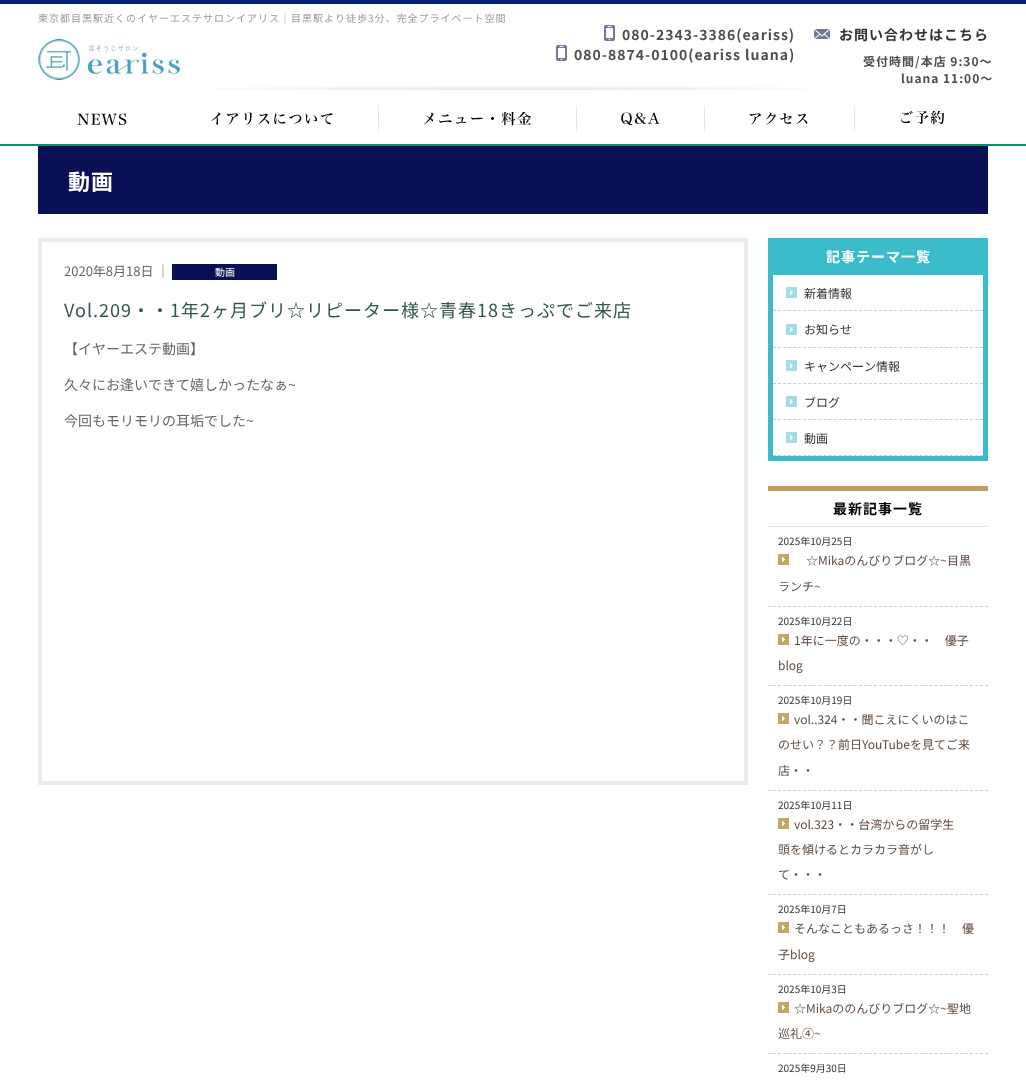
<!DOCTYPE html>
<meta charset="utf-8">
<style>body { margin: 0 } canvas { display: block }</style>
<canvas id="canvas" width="1026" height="1080"></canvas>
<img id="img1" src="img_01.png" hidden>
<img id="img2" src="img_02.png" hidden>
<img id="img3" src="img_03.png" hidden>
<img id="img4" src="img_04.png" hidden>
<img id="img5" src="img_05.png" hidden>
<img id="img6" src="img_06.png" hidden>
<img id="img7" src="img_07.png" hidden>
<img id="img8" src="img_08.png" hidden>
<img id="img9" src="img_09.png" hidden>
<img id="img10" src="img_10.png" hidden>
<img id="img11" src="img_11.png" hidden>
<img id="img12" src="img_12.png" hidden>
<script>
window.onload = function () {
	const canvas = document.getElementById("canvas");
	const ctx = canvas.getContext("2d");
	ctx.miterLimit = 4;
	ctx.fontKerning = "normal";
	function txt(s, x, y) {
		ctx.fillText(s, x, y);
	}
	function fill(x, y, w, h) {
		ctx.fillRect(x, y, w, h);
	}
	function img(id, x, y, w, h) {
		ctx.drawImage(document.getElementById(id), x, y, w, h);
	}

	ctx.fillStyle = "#FFFFFF";
	fill(0, 0, 1026, 1080);
	ctx.fillStyle = "#092078";
	fill(0, 0, 1026, 4);
	ctx.fillStyle = "#009766";
	fill(0, 144, 1026, 2);
	img("img1", 38, 33, 142, 47);
	img("img2", 604, 25, 11, 16);
	img("img3", 814, 29, 16, 10);
	img("img2", 556, 45, 11, 16);
	img("img4", 215, 86, 592, 4);
	img("img5", 77, 113, 50, 12);
	img("img6", 210, 102, 169, 32);
	img("img7", 423, 102, 154, 31);
	img("img8", 621, 102, 84, 31);
	img("img9", 749, 102, 106, 31);
	img("img10", 901, 110, 44, 15);
	ctx.fillStyle = "#0A1054";
	fill(38, 146, 950, 68);
	ctx.strokeStyle = "#EBEBEB";
	ctx.lineWidth = 4;
	ctx.strokeRect(40, 240, 706, 543);
	fill(172, 264, 105, 16);
	ctx.fillStyle = "#3ABCCB";
	fill(768, 238, 220, 223);
	ctx.fillStyle = "#FFFFFF";
	fill(773, 275, 210, 181);
	ctx.beginPath();
	ctx.moveTo(773, 310.5);
	ctx.lineTo(983, 310.5);
	ctx.strokeStyle = "#CCCCCC";
	ctx.lineWidth = 1;
	ctx.setLineDash([3, 2.05]);
	ctx.stroke();
	img("img11", 786, 287, 11, 11);
	ctx.beginPath();
	ctx.moveTo(773, 347.5);
	ctx.lineTo(983, 347.5);
	ctx.stroke();
	img("img11", 786, 324, 11, 11);
	ctx.beginPath();
	ctx.moveTo(773, 383.5);
	ctx.lineTo(983, 383.5);
	ctx.stroke();
	img("img11", 786, 360, 11, 11);
	ctx.beginPath();
	ctx.moveTo(773, 419.5);
	ctx.lineTo(983, 419.5);
	ctx.stroke();
	img("img11", 786, 396, 11, 11);
	ctx.beginPath();
	ctx.moveTo(773, 455.5);
	ctx.lineTo(983, 455.5);
	ctx.stroke();
	img("img11", 786, 432, 11, 11);
	ctx.fillStyle = "#C29E5C";
	fill(768, 486, 220, 5);
	ctx.fillStyle = "#E3E3E3";
	fill(768, 526, 220, 1);
	ctx.beginPath();
	ctx.moveTo(768, 606.5);
	ctx.lineTo(988, 606.5);
	ctx.stroke();
	img("img12", 778, 554, 11, 11);
	ctx.beginPath();
	ctx.moveTo(768, 685.5);
	ctx.lineTo(988, 685.5);
	ctx.stroke();
	img("img12", 778, 634, 11, 11);
	ctx.beginPath();
	ctx.moveTo(768, 790.5);
	ctx.lineTo(988, 790.5);
	ctx.stroke();
	img("img12", 778, 713, 11, 11);
	ctx.beginPath();
	ctx.moveTo(768, 894.5);
	ctx.lineTo(988, 894.5);
	ctx.stroke();
	img("img12", 778, 818, 11, 11);
	ctx.beginPath();
	ctx.moveTo(768, 974.5);
	ctx.lineTo(988, 974.5);
	ctx.stroke();
	img("img12", 778, 922, 11, 11);
	ctx.beginPath();
	ctx.moveTo(768, 1053.5);
	ctx.lineTo(988, 1053.5);
	ctx.stroke();
	img("img12", 778, 1002, 11, 11);
	ctx.letterSpacing = "1px";
	ctx.font = "10px Noto Sans JP";
	ctx.fillStyle = "#999999";
	txt("東京都目黒駅近くのイヤーエステサロンイアリス｜目黒駅より徒歩3分、完全プライベート空間", 38, 22);
	ctx.font = "bold 14px Noto Sans JP";
	ctx.fillStyle = "#4D4D4D";
	txt("080-2343-3386(eariss)", 622, 40);
	ctx.fillStyle = "#333333";
	txt("お問い合わせはこちら", 839, 40);
	ctx.fillStyle = "#4D4D4D";
	txt("080-8874-0100(eariss luana)", 574, 60);
	ctx.font = "bold 12px Noto Sans JP";
	txt("受付時間/本店 9:30～", 863, 66);
	txt("luana 11:00～", 901, 83);
	ctx.font = "bold 22px Noto Sans JP";
	ctx.fillStyle = "#FFFFFF";
	txt("動画", 68, 190);
	ctx.letterSpacing = "0px";
	ctx.font = "13px Noto Sans JP";
	ctx.fillStyle = "#666666";
	txt("2020年8月18日 ｜", 64, 276);
	ctx.font = "10px Noto Sans JP";
	ctx.fillStyle = "#FFFFFF";
	txt("動画", 215, 276);
	ctx.letterSpacing = "1px";
	ctx.font = "18px Noto Sans JP";
	ctx.fillStyle = "#31574A";
	txt("Vol.209・・1年2ヶ月ブリ☆リピーター様☆青春18きっぷでご来店", 64, 317);
	ctx.letterSpacing = "0px";
	ctx.font = "14px Noto Sans JP";
	ctx.fillStyle = "#666666";
	txt("【イヤーエステ動画】", 64, 354);
	txt("久々にお逢いできて嬉しかったなぁ~", 64, 390);
	txt("今回もモリモリの耳垢でした~", 64, 426);
	ctx.letterSpacing = "1px";
	ctx.font = "bold 14px Noto Sans JP";
	ctx.fillStyle = "#FFFFFF";
	txt("記事テーマ一覧", 826, 262);
	ctx.letterSpacing = "0px";
	ctx.font = "12px Noto Sans JP";
	ctx.fillStyle = "#333333";
	txt("新着情報", 804, 298);
	txt("お知らせ", 804, 334);
	txt("キャンペーン情報", 804, 371);
	txt("ブログ", 804, 407);
	txt("動画", 804, 443);
	ctx.letterSpacing = "1px";
	ctx.font = "bold 14px Noto Sans JP";
	ctx.fillStyle = "#000000";
	txt("最新記事一覧", 833, 514);
	ctx.letterSpacing = "0px";
	ctx.font = "10px Noto Sans JP";
	ctx.fillStyle = "#333333";
	txt("2025年10月25日", 778, 545);
	ctx.font = "12px Noto Sans JP";
	ctx.fillStyle = "#5F4B3E";
	txt("☆Mikaのんびりブログ☆~目黒", 806, 565);
	txt("ランチ~", 778, 591);
	ctx.font = "10px Noto Sans JP";
	ctx.fillStyle = "#333333";
	txt("2025年10月22日", 778, 625);
	ctx.font = "12px Noto Sans JP";
	ctx.fillStyle = "#5F4B3E";
	txt("1年に一度の・・・♡・・　優子", 794, 645);
	txt("blog", 778, 670);
	ctx.font = "10px Noto Sans JP";
	ctx.fillStyle = "#333333";
	txt("2025年10月19日", 778, 704);
	ctx.font = "12px Noto Sans JP";
	ctx.fillStyle = "#5F4B3E";
	txt("vol..324・・聞こえにくいのはこ", 794, 724);
	txt("のせい？？前日YouTubeを見てご来", 778, 749);
	txt("店・・", 778, 775);
	ctx.font = "10px Noto Sans JP";
	ctx.fillStyle = "#333333";
	txt("2025年10月11日", 778, 809);
	ctx.font = "12px Noto Sans JP";
	ctx.fillStyle = "#5F4B3E";
	txt("vol.323・・台湾からの留学生", 794, 829);
	txt("頭を傾けるとカラカラ音がし", 778, 854);
	txt("て・・・", 778, 879);
	ctx.font = "10px Noto Sans JP";
	ctx.fillStyle = "#333333";
	txt("2025年10月7日", 778, 913);
	ctx.font = "12px Noto Sans JP";
	ctx.fillStyle = "#5F4B3E";
	txt("そんなこともあるっさ！！！　優", 794, 933);
	txt("子blog", 778, 959);
	ctx.font = "10px Noto Sans JP";
	ctx.fillStyle = "#333333";
	txt("2025年10月3日", 778, 993);
	ctx.font = "12px Noto Sans JP";
	ctx.fillStyle = "#5F4B3E";
	txt("☆Mikaののんびりブログ☆~聖地", 794, 1013);
	txt("巡礼④~", 778, 1038);
	ctx.font = "10px Noto Sans JP";
	ctx.fillStyle = "#333333";
	txt("2025年9月30日", 778, 1072);
};
</script>
